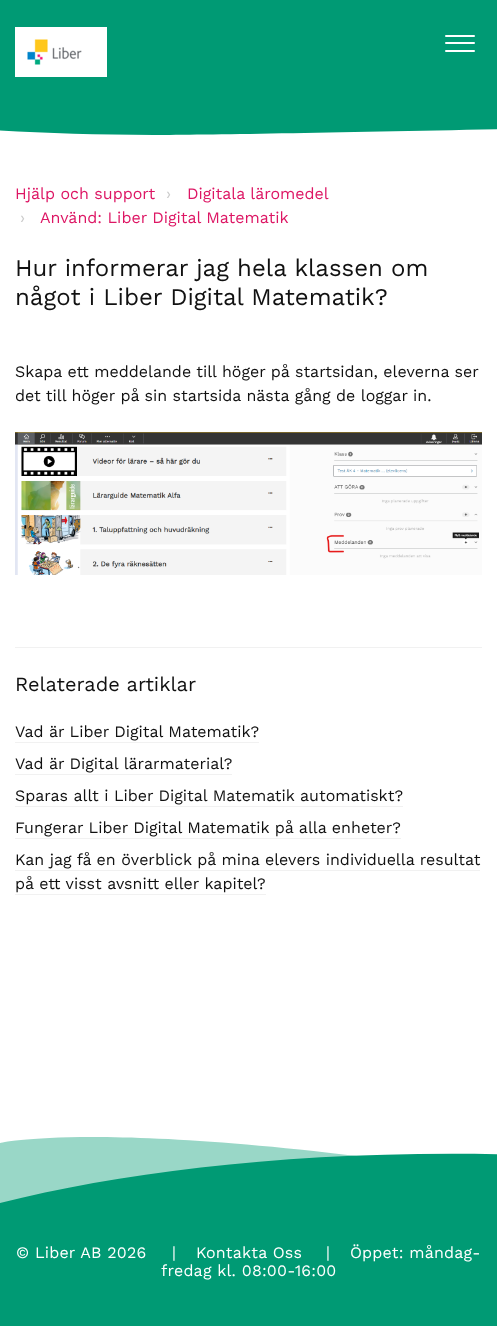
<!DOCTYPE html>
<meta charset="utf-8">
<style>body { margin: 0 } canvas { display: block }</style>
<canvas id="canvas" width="497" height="1326"></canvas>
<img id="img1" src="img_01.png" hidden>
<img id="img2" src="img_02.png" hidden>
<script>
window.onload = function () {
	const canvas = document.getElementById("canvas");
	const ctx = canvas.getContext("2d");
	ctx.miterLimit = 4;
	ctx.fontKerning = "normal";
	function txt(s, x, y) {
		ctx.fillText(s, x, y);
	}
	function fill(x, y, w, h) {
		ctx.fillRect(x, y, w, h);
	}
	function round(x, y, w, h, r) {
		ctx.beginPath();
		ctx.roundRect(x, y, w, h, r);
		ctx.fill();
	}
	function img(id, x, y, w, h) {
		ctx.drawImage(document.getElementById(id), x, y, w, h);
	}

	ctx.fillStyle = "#FFFFFF";
	fill(0, 0, 497, 1326);
	ctx.fillStyle = "#009A74";
	fill(0, 0, 497, 103);
	img("img1", 15, 27, 92, 50);
	ctx.fillStyle = "#FFFFFF";
	round(445, 42, 30, 2, 1);
	round(445, 35, 30, 2, 1);
	round(445, 50, 30, 2, 1);
	ctx.fillStyle = "#009A74";
	ctx.beginPath();
	ctx.moveTo(154, 135);
	ctx.bezierCurveTo(333, 135, 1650, 103, 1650, 103);
	ctx.lineTo(-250, 103);
	ctx.bezierCurveTo(-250, 103, -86, 135, 154, 135);
	ctx.closePath();
	ctx.fill();
	img("img2", 15, 432, 467, 143);
	ctx.fillStyle = "#F1F1F1";
	fill(15, 647, 467, 1);
	fill(15, 742, 244, 1);
	fill(15, 774, 217, 1);
	fill(15, 806, 388, 1);
	fill(15, 838, 386, 1);
	fill(15, 870, 465, 1);
	fill(15, 894, 251, 1);
	ctx.fillStyle = "#009A74";
	fill(0, 1222, 497, 104);
	ctx.save();
	ctx.beginPath();
	ctx.rect(0, 1122, 497, 100);
	ctx.clip();
	ctx.fillStyle = "rgba(0, 154, 116, 0.4)";
	ctx.beginPath();
	ctx.moveTo(0, 1143);
	ctx.bezierCurveTo(0, 1143, 122, 1114, 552, 1184);
	ctx.bezierCurveTo(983, 1253, 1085, 1140, 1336, 1125);
	ctx.bezierCurveTo(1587, 1110, 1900, 1173, 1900, 1173);
	ctx.lineTo(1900, 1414);
	ctx.lineTo(0, 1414);
	ctx.closePath();
	ctx.fill();
	ctx.fillStyle = "#009A74";
	ctx.beginPath();
	ctx.moveTo(0, 1203);
	ctx.bezierCurveTo(151, 1165, 370, 1142, 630, 1160);
	ctx.bezierCurveTo(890, 1178, 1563, 1269, 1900, 1132);
	ctx.lineTo(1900, 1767);
	ctx.lineTo(0, 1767);
	ctx.closePath();
	ctx.fill();
	ctx.restore();
	ctx.font = "16px Work Sans";
	ctx.fillStyle = "#DD1664";
	txt("Hjälp och support", 15, 199);
	ctx.fillStyle = "#CCCCCC";
	txt("›", 166, 199);
	ctx.fillStyle = "#DD1664";
	txt("Digitala läromedel", 187, 199);
	ctx.fillStyle = "#CCCCCC";
	txt("›", 20, 223);
	ctx.fillStyle = "#DD1664";
	txt("Använd: Liber Digital Matematik", 40, 223);
	ctx.font = "24px Work Sans";
	ctx.fillStyle = "#111111";
	txt("Hur informerar jag hela klassen om", 15, 276);
	txt("något i Liber Digital Matematik?", 15, 305);
	ctx.font = "16px Work Sans";
	txt("Skapa ett meddelande till höger på startsidan, eleverna ser", 15, 377);
	txt("det till höger på sin startsida nästa gång de loggar in.", 15, 401);
	ctx.font = "20px Work Sans";
	txt("Relaterade artiklar", 15, 691);
	ctx.font = "16px Work Sans";
	txt("Vad är Liber Digital Matematik?", 15, 737);
	txt("Vad är Digital lärarmaterial?", 15, 769);
	txt("Sparas allt i Liber Digital Matematik automatiskt?", 15, 801);
	txt("Fungerar Liber Digital Matematik på alla enheter?", 15, 833);
	txt("Kan jag få en överblick på mina elevers individuella resultat", 15, 865);
	txt("på ett visst avsnitt eller kapitel?", 15, 889);
	ctx.letterSpacing = "0.2px";
	ctx.fillStyle = "#FFFFFF";
	txt("© Liber AB 2026", 16, 1258);
	txt("|", 172, 1258);
	txt("Kontakta Oss", 196, 1258);
	txt("|", 326, 1258);
	txt("Öppet: måndag-", 350, 1258);
	txt("fredag kl. 08:00-16:00", 161, 1276);
};
</script>
